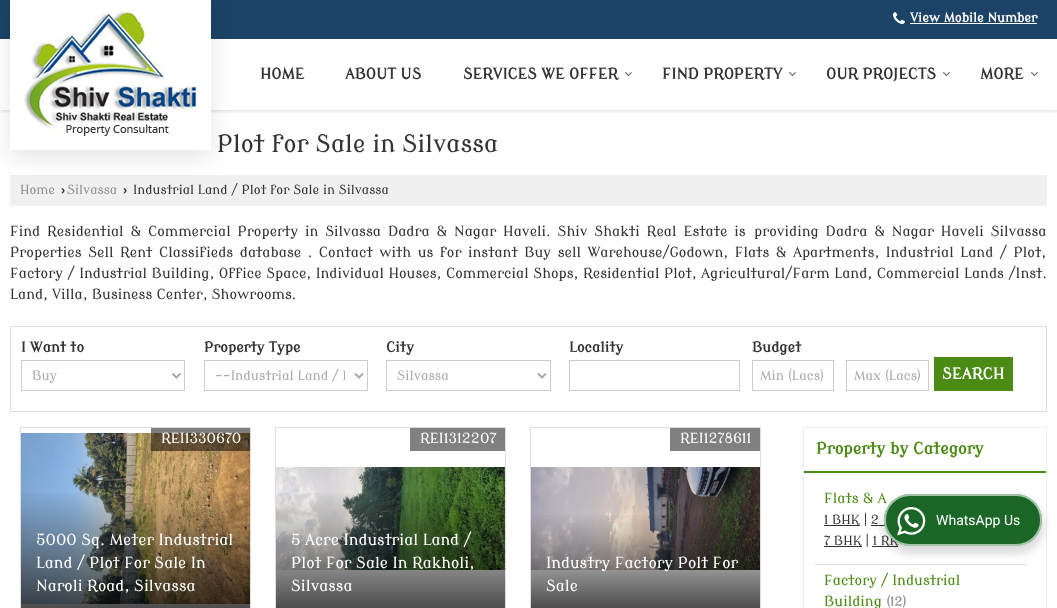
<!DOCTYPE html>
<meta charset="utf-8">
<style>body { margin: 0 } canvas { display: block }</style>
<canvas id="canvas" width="1057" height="608"></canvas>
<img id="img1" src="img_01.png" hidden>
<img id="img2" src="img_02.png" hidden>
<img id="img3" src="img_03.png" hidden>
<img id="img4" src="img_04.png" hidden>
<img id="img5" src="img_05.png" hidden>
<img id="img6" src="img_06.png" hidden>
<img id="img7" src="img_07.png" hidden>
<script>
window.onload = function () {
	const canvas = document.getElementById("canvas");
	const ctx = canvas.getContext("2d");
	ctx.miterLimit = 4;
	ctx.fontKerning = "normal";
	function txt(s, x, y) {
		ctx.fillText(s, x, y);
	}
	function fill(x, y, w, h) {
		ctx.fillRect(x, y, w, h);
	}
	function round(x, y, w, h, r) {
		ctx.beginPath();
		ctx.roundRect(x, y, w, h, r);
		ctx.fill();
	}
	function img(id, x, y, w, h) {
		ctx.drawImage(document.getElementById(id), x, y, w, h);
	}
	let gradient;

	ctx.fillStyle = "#FFFFFF";
	fill(0, 0, 1057, 608);
	ctx.save();
	ctx.beginPath();
	ctx.rect(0, 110, 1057, 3);
	ctx.clip();
	ctx.fillStyle = "rgba(0, 0, 0, 0.1)";
	ctx.filter = "blur(1.5px)";
	ctx.beginPath();
	ctx.rect(1, 41, 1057, 71);
	ctx.fill();
	ctx.filter = "none";
	ctx.restore();
	ctx.fillStyle = "#1C4367";
	fill(0, 0, 1057, 39);
	img("img1", 893, 12, 12, 12);
	ctx.fillStyle = "#FFFFFF";
	fill(910, 23, 127, 1);
	ctx.fillStyle = "#F0F0F0";
	fill(10, 175, 1037, 31);
	ctx.fillStyle = "rgba(0, 0, 0, 0.1)";
	ctx.filter = "blur(10.5px)";
	ctx.beginPath();
	ctx.rect(10, 1, 201, 156);
	ctx.fill();
	ctx.filter = "none";
	ctx.fillStyle = "#FFFFFF";
	fill(10, 0, 201, 150);
	img("img2", 23, 4, 176, 132);
	img("img3", 625, 72, 7, 5);
	img("img3", 789, 72, 7, 5);
	img("img3", 943, 72, 7, 5);
	img("img3", 1031, 72, 7, 5);
	ctx.strokeStyle = "#DEDEDE";
	ctx.strokeRect(10.5, 326.5, 1036, 85);
	ctx.strokeStyle = "#CCCCCC";
	ctx.strokeRect(21.5, 360.5, 163, 30);
	ctx.beginPath();
	ctx.moveTo(172.5, 373.5);
	ctx.lineTo(176.5, 377.5);
	ctx.lineTo(180.5, 373.5);
	ctx.strokeStyle = "#AAAAAA";
	ctx.lineWidth = 2;
	ctx.stroke();
	ctx.strokeStyle = "#CCCCCC";
	ctx.lineWidth = 1;
	ctx.strokeRect(204.5, 360.5, 163, 30);
	ctx.beginPath();
	ctx.moveTo(355, 373.5);
	ctx.lineTo(359, 377.5);
	ctx.lineTo(363, 373.5);
	ctx.strokeStyle = "#AAAAAA";
	ctx.lineWidth = 2;
	ctx.stroke();
	ctx.strokeStyle = "#CCCCCC";
	ctx.lineWidth = 1;
	ctx.strokeRect(386.5, 360.5, 164, 30);
	ctx.beginPath();
	ctx.moveTo(538, 373.5);
	ctx.lineTo(542, 377.5);
	ctx.lineTo(546, 373.5);
	ctx.strokeStyle = "#AAAAAA";
	ctx.lineWidth = 2;
	ctx.stroke();
	ctx.strokeStyle = "#CCCCCC";
	ctx.lineWidth = 1;
	ctx.strokeRect(569.5, 360.5, 170, 30);
	ctx.strokeRect(752.5, 360.5, 81, 30);
	ctx.strokeRect(846.5, 360.5, 82, 30);
	ctx.fillStyle = "#4B8A13";
	fill(934, 357, 79, 34);
	ctx.strokeStyle = "#DEDEDE";
	ctx.strokeRect(20.5, 427.5, 230, 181);
	img("img4", 21, 433, 229, 171);
	ctx.fillStyle = "rgba(0, 0, 0, 0.5)";
	fill(151, 428, 99, 23);
	gradient = ctx.createLinearGradient(136, 489, 136, 608);
	gradient.addColorStop(0, "rgba(0, 0, 0, 0)");
	gradient.addColorStop(1, "rgba(0, 0, 0, 0.7)");
	ctx.fillStyle = gradient;
	fill(21, 493, 229, 115);
	ctx.strokeRect(275.5, 427.5, 230, 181);
	ctx.fillStyle = "#808080";
	fill(410, 428, 95, 23);
	img("img5", 276, 467, 229, 103);
	gradient = ctx.createLinearGradient(391, 489, 391, 608);
	gradient.addColorStop(0, "rgba(0, 0, 0, 0)");
	gradient.addColorStop(1, "rgba(0, 0, 0, 0.7)");
	ctx.fillStyle = gradient;
	fill(276, 493, 229, 115);
	ctx.strokeRect(530.5, 427.5, 230, 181);
	ctx.fillStyle = "#808080";
	fill(670, 428, 90, 23);
	img("img6", 531, 467, 229, 103);
	gradient = ctx.createLinearGradient(646, 512, 646, 608);
	gradient.addColorStop(0, "rgba(0, 0, 0, 0)");
	gradient.addColorStop(1, "rgba(0, 0, 0, 0.7)");
	ctx.fillStyle = gradient;
	fill(531, 515, 229, 93);
	ctx.strokeStyle = "#EDEDED";
	ctx.strokeRect(803.5, 427.5, 243, 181);
	ctx.fillStyle = "#4B8A13";
	fill(804, 471, 242, 2);
	ctx.fillStyle = "#333333";
	fill(824, 525, 36, 1);
	fill(871, 525, 14, 1);
	fill(824, 546, 38, 1);
	fill(872, 546, 26, 1);
	ctx.fillStyle = "#DEDEDE";
	fill(815, 564, 213, 1);
	ctx.fillStyle = "rgba(0, 0, 0, 0.14)";
	ctx.filter = "blur(4px)";
	ctx.beginPath();
	ctx.roundRect(882, 498, 162, 56, 28);
	ctx.fill();
	ctx.filter = "none";
	ctx.font = "bold 12.6px Modern Antiqua";
	ctx.fillStyle = "#FFFFFF";
	txt("View Mobile Number", 910, 22);
	ctx.font = "bold 15px Modern Antiqua";
	ctx.fillStyle = "#333333";
	txt("HOME", 260, 79);
	txt("ABOUT US", 345, 79);
	txt("SERVICES WE OFFER", 463, 79);
	txt("FIND PROPERTY", 662, 79);
	txt("OUR PROJECTS", 826, 79);
	txt("MORE", 980, 79);
	ctx.font = "24px Modern Antiqua";
	txt("Plot for Sale in Silvassa", 217, 152);
	ctx.font = "12.6px Modern Antiqua";
	ctx.fillStyle = "#909090";
	txt("Home", 20, 194);
	ctx.font = "bold 12.6px Liberation Sans";
	ctx.fillStyle = "#333333";
	txt("›", 61, 194);
	ctx.font = "12.6px Modern Antiqua";
	ctx.fillStyle = "#909090";
	txt("Silvassa", 67, 194);
	ctx.font = "bold 12.6px Liberation Sans";
	ctx.fillStyle = "#333333";
	txt("›", 123, 194);
	ctx.font = "12.6px Modern Antiqua";
	txt("Industrial Land / Plot for Sale in Silvassa", 133, 194);
	ctx.wordSpacing = "2.75px";
	ctx.font = "14px Modern Antiqua";
	txt("Find Residential & Commercial Property in Silvassa Dadra & Nagar Haveli. Shiv Shakti Real Estate is", 10, 236);
	txt("providing Dadra & Nagar Haveli Silvassa", 754, 236);
	ctx.wordSpacing = "2.4px";
	txt("Properties Sell Rent Classifieds database . Contact with us for instant Buy sell Warehouse/Godown, Flats & Apartments, Industrial Land / Plot,", 10, 257);
	ctx.wordSpacing = "0.4px";
	txt("Factory / Industrial Building, Office Space, Individual Houses, Commercial Shops, Residential Plot, Agricultural/Farm Land, Commercial Lands /Inst.", 10, 278);
	ctx.wordSpacing = "0px";
	txt("Land, Villa, Business Center, Showrooms.", 10, 299);
	ctx.font = "bold 14px Modern Antiqua";
	txt("I Want to", 21, 352);
	ctx.font = "13px Modern Antiqua";
	ctx.fillStyle = "#AAAAAA";
	txt("Buy", 32, 380);
	ctx.font = "bold 14px Modern Antiqua";
	ctx.fillStyle = "#333333";
	txt("Property Type", 204, 352);
	ctx.save();
	ctx.beginPath();
	ctx.rect(215, 367, 130, 17);
	ctx.clip();
	ctx.font = "13px Modern Antiqua";
	ctx.fillStyle = "#AAAAAA";
	txt("--Industrial Land / P", 215, 380);
	ctx.restore();
	txt("City", 386, 352);
	ctx.font = "13px Modern Antiqua";
	ctx.fillStyle = "#AAAAAA";
	txt("Silvassa", 397, 380);
	ctx.font = "bold 14px Modern Antiqua";
	ctx.fillStyle = "#333333";
	txt("Locality", 569, 352);
	txt("Budget", 752, 352);
	ctx.font = "13px Modern Antiqua";
	ctx.fillStyle = "#AAAAAA";
	txt("Min (Lacs)", 760, 380);
	txt("Max (Lacs)", 854, 380);
	ctx.font = "bold 15.4px Modern Antiqua";
	ctx.fillStyle = "#FFFFFF";
	txt("SEARCH", 942, 379);
	ctx.font = "14px Modern Antiqua";
	txt("REI1330670", 161, 443);
	ctx.font = "15.4px Modern Antiqua";
	txt("5000 Sq. Meter Industrial", 36, 545);
	txt("Land / Plot For Sale In", 36, 568);
	txt("Naroli Road, Silvassa", 36, 591);
	ctx.font = "14px Modern Antiqua";
	txt("REI1312207", 420, 443);
	ctx.font = "15.4px Modern Antiqua";
	txt("5 Acre Industrial Land /", 291, 545);
	txt("Plot For Sale In Rakholi,", 291, 568);
	txt("Silvassa", 291, 591);
	ctx.font = "14px Modern Antiqua";
	txt("REI1278611", 680, 443);
	ctx.font = "15.4px Modern Antiqua";
	txt("Industry Factory Polt For", 546, 568);
	txt("Sale", 546, 591);
	ctx.font = "bold 16px Modern Antiqua";
	ctx.fillStyle = "#4B8A13";
	txt("Property by Category", 816, 454);
	ctx.font = "14px Modern Antiqua";
	txt("Flats & A", 824, 503);
	ctx.font = "12.6px Modern Antiqua";
	ctx.fillStyle = "#333333";
	txt("1 BHK | 2", 824, 524);
	txt("7 BHK | 1 RK", 824, 545);
	ctx.font = "14px Modern Antiqua";
	ctx.fillStyle = "#4B8A13";
	txt("Factory / Industrial", 824, 585);
	txt("Building", 824, 606);
	ctx.font = "bold 12.6px Modern Antiqua";
	ctx.fillStyle = "#999999";
	txt("(12)", 886, 606);
	ctx.fillStyle = "#196626";
	round(884, 494, 158, 52, 26);
	ctx.beginPath();
	ctx.roundRect(885, 495, 156, 50, 25);
	ctx.strokeStyle = "rgba(255, 255, 255, 0.6)";
	ctx.lineWidth = 2;
	ctx.stroke();
	img("img7", 897, 507, 29, 29);
	ctx.font = "14px Roboto";
	ctx.fillStyle = "#FFFFFF";
	txt("WhatsApp Us", 936, 525);
};
</script>
